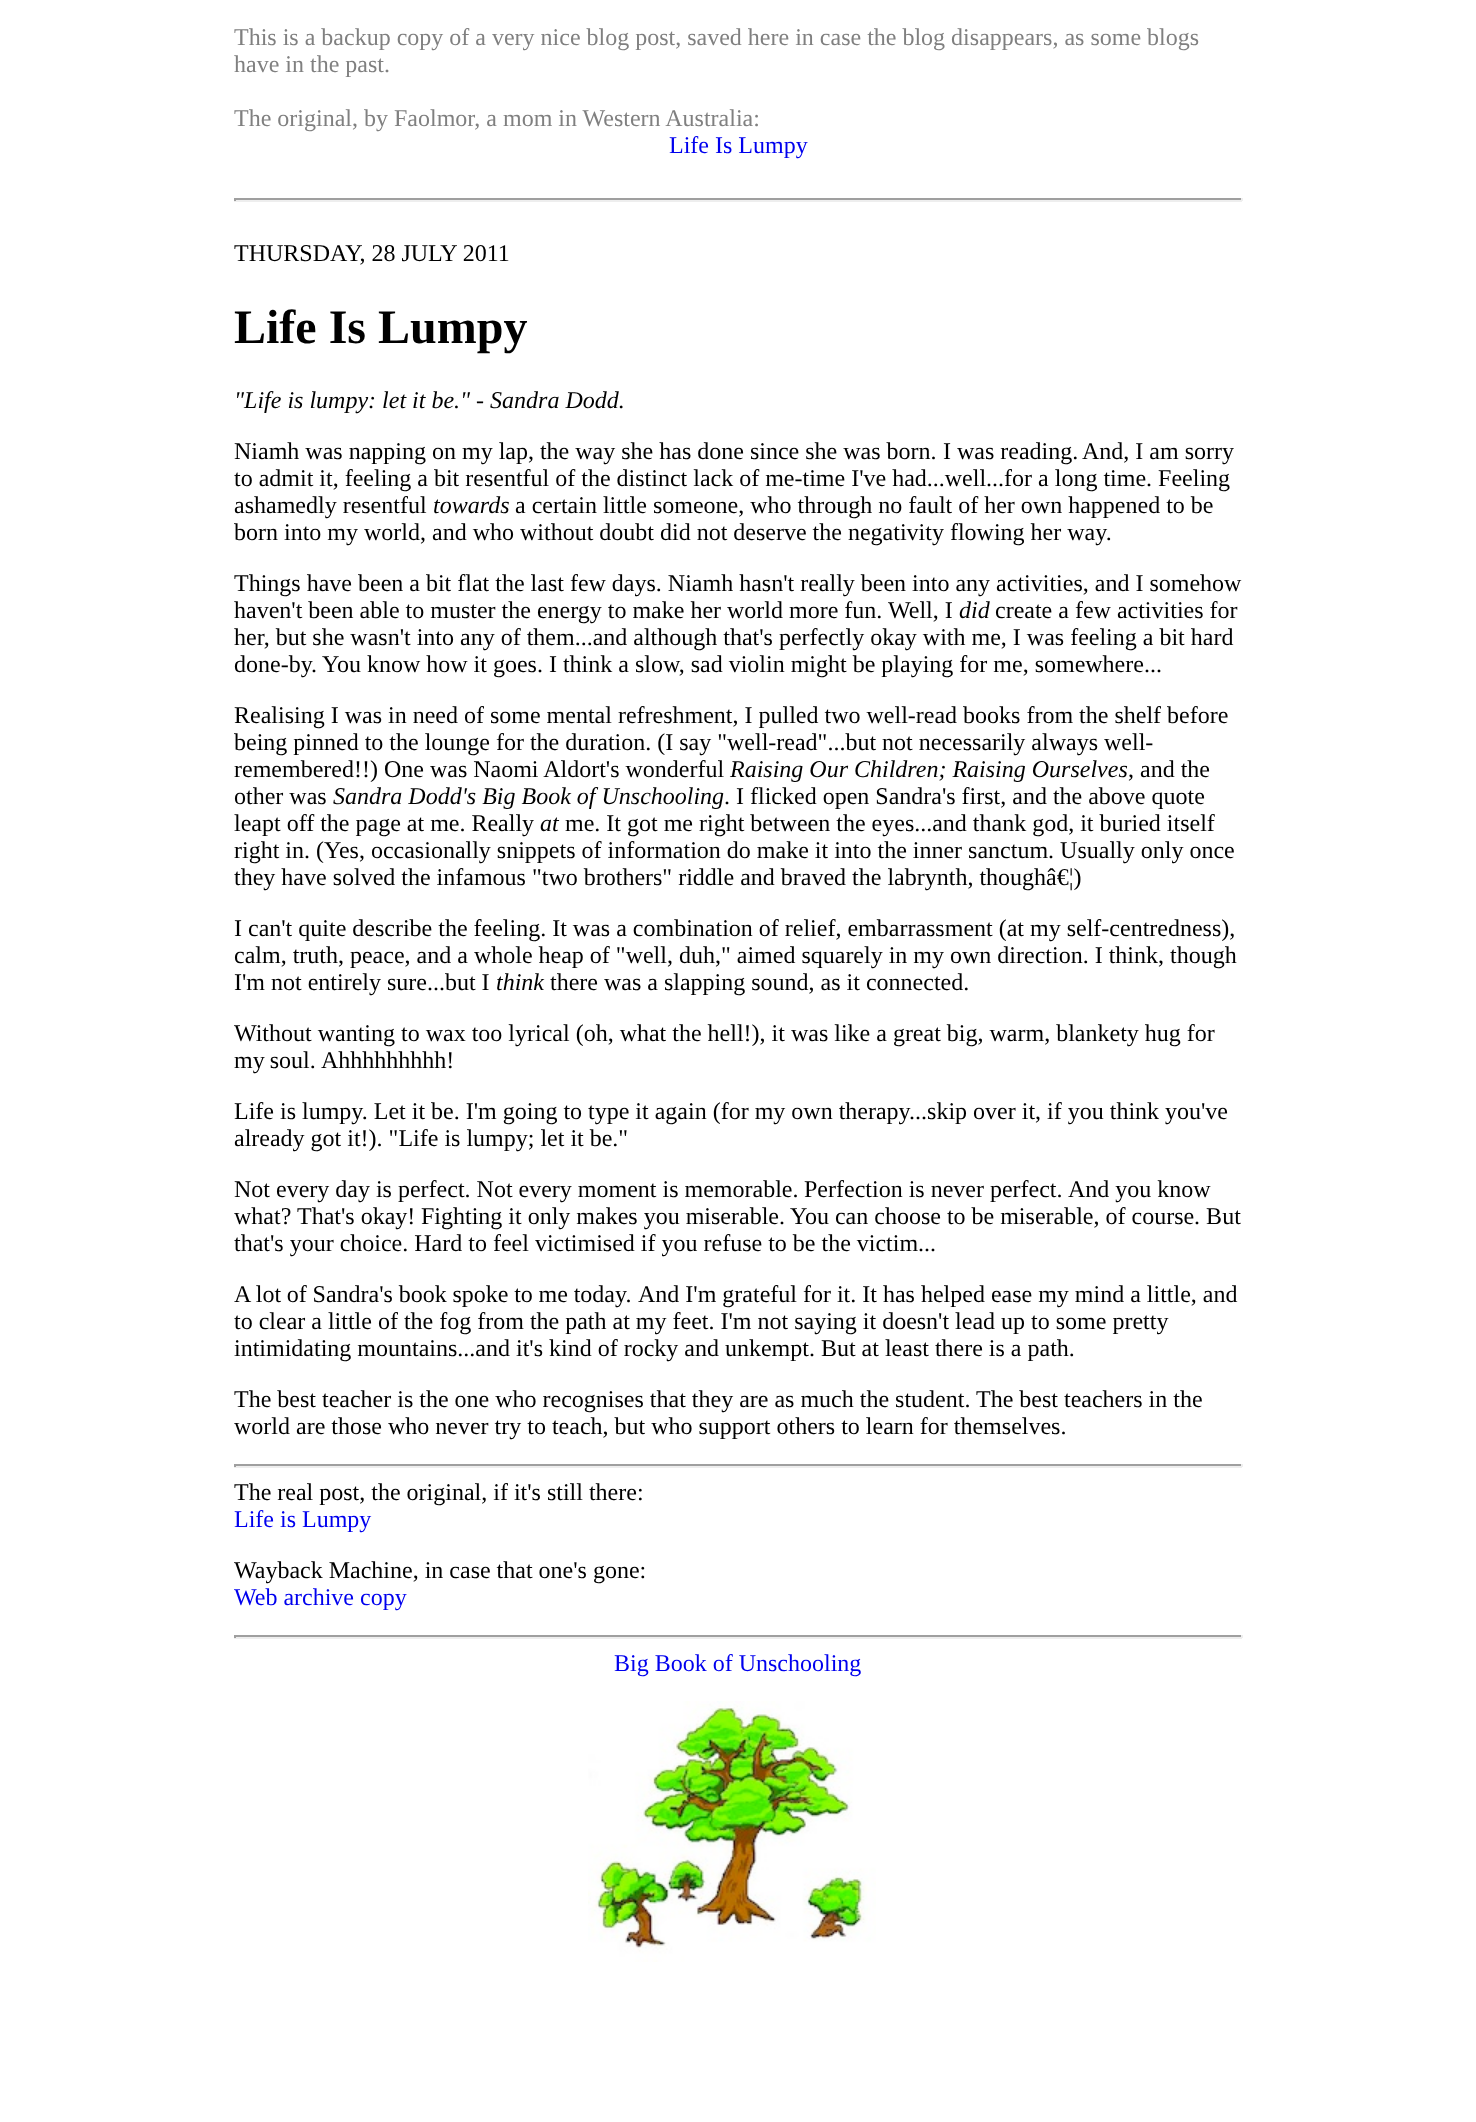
<!DOCTYPE html>
<meta charset="utf-8">
<style>body { margin: 0 } canvas { display: block }</style>
<canvas id="canvas" width="1476" height="2122"></canvas>
<img id="img1" src="img_01.png" hidden>
<script>
window.onload = function () {
	const canvas = document.getElementById("canvas");
	const ctx = canvas.getContext("2d");
	ctx.miterLimit = 4;
	ctx.fontKerning = "normal";
	function txt(s, x, y) {
		ctx.fillText(s, x, y);
	}
	function fill(x, y, w, h) {
		ctx.fillRect(x, y, w, h);
	}
	function img(id, x, y, w, h) {
		ctx.drawImage(document.getElementById(id), x, y, w, h);
	}

	ctx.fillStyle = "#FFFFFF";
	fill(0, 0, 1476, 2122);
	ctx.fillStyle = "#9F9F9F";
	fill(234, 198, 1008, 2);
	ctx.fillStyle = "#EEEEEE";
	fill(1241, 198, 2, 3);
	fill(234, 200, 1008, 2);
	ctx.fillStyle = "#9F9F9F";
	fill(234, 198, 2, 3);
	fill(234, 1464, 1008, 2);
	ctx.fillStyle = "#EEEEEE";
	fill(1241, 1464, 2, 3);
	fill(234, 1466, 1008, 2);
	ctx.fillStyle = "#9F9F9F";
	fill(234, 1464, 2, 3);
	fill(234, 1635, 1008, 2);
	ctx.fillStyle = "#EEEEEE";
	fill(1241, 1635, 2, 3);
	fill(234, 1637, 1008, 2);
	ctx.fillStyle = "#9F9F9F";
	fill(234, 1635, 2, 3);
	img("img1", 588, 1701, 288, 261);
	ctx.font = "24px Liberation Serif";
	ctx.fillStyle = "#808080";
	txt("This is a backup copy of a very nice blog post, saved here in case the blog disappears, as some blogs", 234, 45);
	txt("have in the past.", 234, 72);
	txt("The original, by Faolmor, a mom in Western Australia:", 234, 126);
	ctx.fillStyle = "#0000EE";
	txt("Life Is Lumpy", 669, 153);
	ctx.fillStyle = "#000000";
	txt("THURSDAY, 28 JULY 2011", 234, 261);
	ctx.font = "bold 48px Liberation Serif";
	txt("Life Is Lumpy", 234, 343);
	ctx.font = "italic 24px Liberation Serif";
	txt("\"Life is lumpy: let it be.\" - Sandra Dodd.", 234, 408);
	ctx.font = "24px Liberation Serif";
	txt("Niamh was napping on my lap, the way she has done since she was born.", 234, 459);
	txt("I was reading.", 943, 459);
	txt("And, I am sorry", 1082, 459);
	txt("to admit it, feeling a bit resentful of the distinct lack of me-time I've had...well...for a long time. Feeling", 234, 486);
	txt("ashamedly resentful", 234, 513);
	ctx.font = "italic 24px Liberation Serif";
	txt("towards", 433, 513);
	ctx.font = "24px Liberation Serif";
	txt("a certain little someone, who through no fault of her own happened to be", 515, 513);
	txt("born into my world, and who without doubt did not deserve the negativity flowing her way.", 234, 540);
	txt("Things have been a bit flat the last few days. Niamh hasn't really been into any activities, and I somehow", 234, 591);
	txt("haven't been able to muster the energy to make her world more fun.", 234, 618);
	txt("Well, I", 888, 618);
	ctx.font = "italic 24px Liberation Serif";
	txt("did", 959, 618);
	ctx.font = "24px Liberation Serif";
	txt("create a few activities for", 995, 618);
	txt("her, but she wasn't into any of them...and although that's perfectly okay with me, I was feeling a bit hard", 234, 645);
	txt("done-by.", 234, 672);
	txt("You know how it goes. I think a slow, sad violin might be playing for me, somewhere...", 322, 672);
	txt("Realising I was in need of some mental refreshment, I pulled two well-read books from the shelf before", 234, 723);
	txt("being pinned to the lounge for the duration. (I say \"well-read\"...but not necessarily always well-", 234, 750);
	txt("remembered!!) One was Naomi Aldort's wonderful", 234, 777);
	ctx.font = "italic 24px Liberation Serif";
	txt("Raising Our Children; Raising Ourselves", 730, 777);
	ctx.font = "24px Liberation Serif";
	txt(", and the", 1128, 777);
	txt("other was", 234, 804);
	ctx.font = "italic 24px Liberation Serif";
	txt("Sandra Dodd's Big Book of Unschooling", 333, 804);
	ctx.font = "24px Liberation Serif";
	txt(". I flicked open Sandra's first, and the above quote", 724, 804);
	txt("leapt off the page at me. Really", 234, 831);
	ctx.font = "italic 24px Liberation Serif";
	txt("at", 540, 831);
	ctx.font = "24px Liberation Serif";
	txt("me. It got me right between the eyes...and thank god, it buried itself", 565, 831);
	txt("right in. (Yes, occasionally snippets of information do make it into the inner sanctum. Usually only once", 234, 858);
	txt("they have solved the infamous \"two brothers\" riddle and braved the labrynth, thoughâ€¦)", 234, 885);
	txt("I can't quite describe the feeling. It was a combination of relief, embarrassment (at my self-centredness),", 234, 936);
	txt("calm, truth, peace, and a whole heap of \"well, duh,\" aimed squarely in my own direction. I think, though", 234, 963);
	txt("I'm not entirely sure...but I", 234, 990);
	ctx.font = "italic 24px Liberation Serif";
	txt("think", 496, 990);
	ctx.font = "24px Liberation Serif";
	txt("there was a slapping sound, as it connected.", 550, 990);
	txt("Without wanting to wax too lyrical (oh, what the hell!), it was like a great big, warm, blankety hug for", 234, 1041);
	ctx.wordSpacing = "-1px";
	txt("my soul.", 234, 1068);
	ctx.wordSpacing = "0px";
	txt("Ahhhhhhhhh!", 321, 1068);
	txt("Life is lumpy. Let it be. I'm going to type it again (for my own therapy...skip over it, if you think you've", 234, 1119);
	txt("already got it!). \"Life is lumpy; let it be.\"", 234, 1146);
	txt("Not every day is perfect. Not every moment is memorable.", 234, 1197);
	txt("Perfection is never perfect.", 804, 1197);
	txt("And you know", 1068, 1197);
	txt("what?", 234, 1224);
	txt("That's okay!", 297, 1224);
	txt("Fighting it only makes you miserable.", 421, 1224);
	txt("You can choose to be miserable, of course. But", 790, 1224);
	txt("that's your choice. Hard to feel victimised if you refuse to be the victim...", 234, 1251);
	ctx.wordSpacing = "-0.25px";
	txt("A lot of Sandra's book spoke to me today.", 234, 1302);
	ctx.wordSpacing = "0px";
	txt("And I'm grateful for it. It has helped ease my mind a little, and", 638, 1302);
	txt("to clear a little of the fog from the path at my feet. I'm not saying it doesn't lead up to some pretty", 234, 1329);
	txt("intimidating mountains...and it's kind of rocky and unkempt. But at least there is a path.", 234, 1356);
	txt("The best teacher is the one who recognises that they are as much the student.", 234, 1407);
	txt("The best teachers in the", 976, 1407);
	txt("world are those who never try to teach, but who support others to learn for themselves.", 234, 1434);
	txt("The real post, the original, if it's still there:", 234, 1500);
	ctx.fillStyle = "#0000EE";
	txt("Life is Lumpy", 234, 1527);
	ctx.fillStyle = "#000000";
	txt("Wayback Machine, in case that one's gone:", 234, 1578);
	ctx.fillStyle = "#0000EE";
	txt("Web archive copy", 234, 1605);
	txt("Big Book of Unschooling", 614, 1671);
};
</script>
